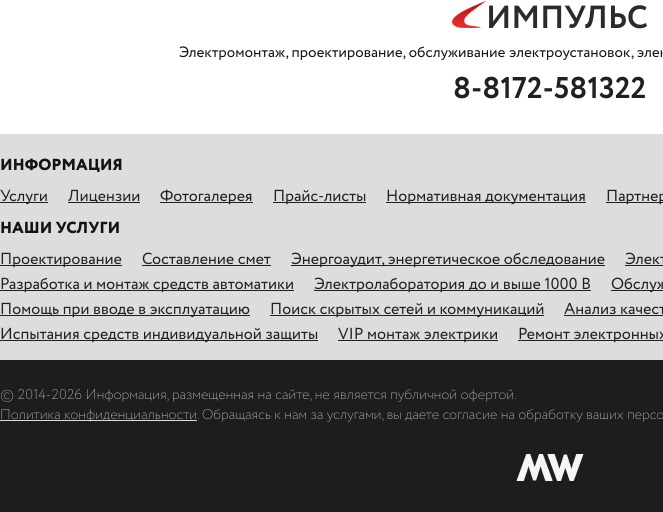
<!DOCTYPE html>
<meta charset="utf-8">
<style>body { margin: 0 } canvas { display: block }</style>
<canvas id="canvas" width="663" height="512"></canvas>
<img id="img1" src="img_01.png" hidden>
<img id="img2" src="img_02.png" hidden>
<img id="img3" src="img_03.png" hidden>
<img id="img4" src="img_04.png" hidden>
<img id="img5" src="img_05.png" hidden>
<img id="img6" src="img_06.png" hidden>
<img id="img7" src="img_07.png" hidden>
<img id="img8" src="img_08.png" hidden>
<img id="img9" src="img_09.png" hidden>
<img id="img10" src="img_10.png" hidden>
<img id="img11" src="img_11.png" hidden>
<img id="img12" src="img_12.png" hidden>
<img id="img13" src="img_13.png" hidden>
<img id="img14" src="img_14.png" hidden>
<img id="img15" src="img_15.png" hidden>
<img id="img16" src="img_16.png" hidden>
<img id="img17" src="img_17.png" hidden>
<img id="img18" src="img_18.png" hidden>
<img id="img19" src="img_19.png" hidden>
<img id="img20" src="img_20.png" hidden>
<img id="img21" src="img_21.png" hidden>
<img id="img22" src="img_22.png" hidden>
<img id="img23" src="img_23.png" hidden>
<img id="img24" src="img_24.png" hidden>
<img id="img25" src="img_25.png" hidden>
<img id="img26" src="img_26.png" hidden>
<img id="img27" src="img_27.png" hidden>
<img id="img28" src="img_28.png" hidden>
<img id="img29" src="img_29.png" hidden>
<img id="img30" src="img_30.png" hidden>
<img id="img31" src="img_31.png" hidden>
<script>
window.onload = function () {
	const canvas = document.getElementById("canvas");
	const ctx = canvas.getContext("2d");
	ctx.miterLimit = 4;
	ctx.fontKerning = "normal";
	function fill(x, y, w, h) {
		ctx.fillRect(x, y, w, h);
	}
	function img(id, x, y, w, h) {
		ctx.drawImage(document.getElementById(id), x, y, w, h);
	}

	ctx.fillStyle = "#FFFFFF";
	fill(0, 0, 663, 512);
	img("img1", 452, 1, 34, 27);
	img("img2", 489, 5, 158, 24);
	img("img3", 179, 46, 326, 14);
	img("img4", 509, 50, 154, 10);
	img("img5", 454, 76, 191, 23);
	ctx.fillStyle = "#1D1D1B";
	fill(0, 360, 663, 152);
	ctx.fillStyle = "#DDDDDD";
	fill(0, 134, 663, 226);
	img("img6", 1, 158, 121, 14);
	ctx.fillStyle = "#202020";
	fill(0, 202, 48, 1);
	img("img7", 0, 189, 47, 16);
	img("img8", 68, 189, 72, 13);
	fill(68, 202, 72, 1);
	fill(160, 202, 93, 1);
	img("img9", 160, 189, 92, 16);
	fill(273, 202, 93, 1);
	img("img10", 274, 189, 92, 16);
	fill(386, 202, 200, 1);
	img("img11", 387, 189, 198, 16);
	fill(606, 202, 57, 1);
	img("img12", 607, 189, 56, 16);
	img("img13", 1, 221, 118, 13);
	fill(0, 265, 122, 1);
	img("img14", 1, 252, 121, 16);
	img("img15", 142, 252, 129, 13);
	fill(142, 265, 129, 1);
	fill(291, 265, 314, 1);
	img("img16", 291, 252, 314, 16);
	img("img17", 625, 252, 38, 13);
	fill(625, 265, 38, 1);
	fill(0, 290, 294, 1);
	img("img18", 1, 277, 292, 16);
	fill(314, 290, 277, 1);
	img("img19", 314, 277, 150, 16);
	img("img20", 469, 277, 121, 13);
	fill(611, 290, 52, 1);
	img("img21", 611, 277, 52, 16);
	fill(0, 315, 250, 1);
	img("img22", 1, 302, 249, 16);
	fill(270, 315, 274, 1);
	img("img23", 271, 302, 273, 16);
	img("img24", 564, 302, 99, 13);
	fill(564, 315, 99, 1);
	fill(0, 340, 318, 1);
	img("img25", 1, 327, 317, 16);
	fill(338, 340, 160, 1);
	img("img26", 338, 327, 159, 16);
	fill(518, 340, 145, 1);
	img("img27", 519, 327, 144, 16);
	img("img28", 1, 389, 515, 13);
	ctx.fillStyle = "#DDDDDD";
	fill(0, 420, 197, 1);
	img("img29", 1, 409, 196, 13);
	img("img30", 197, 409, 466, 13);
	img("img31", 516, 454, 68, 27);
};
</script>
